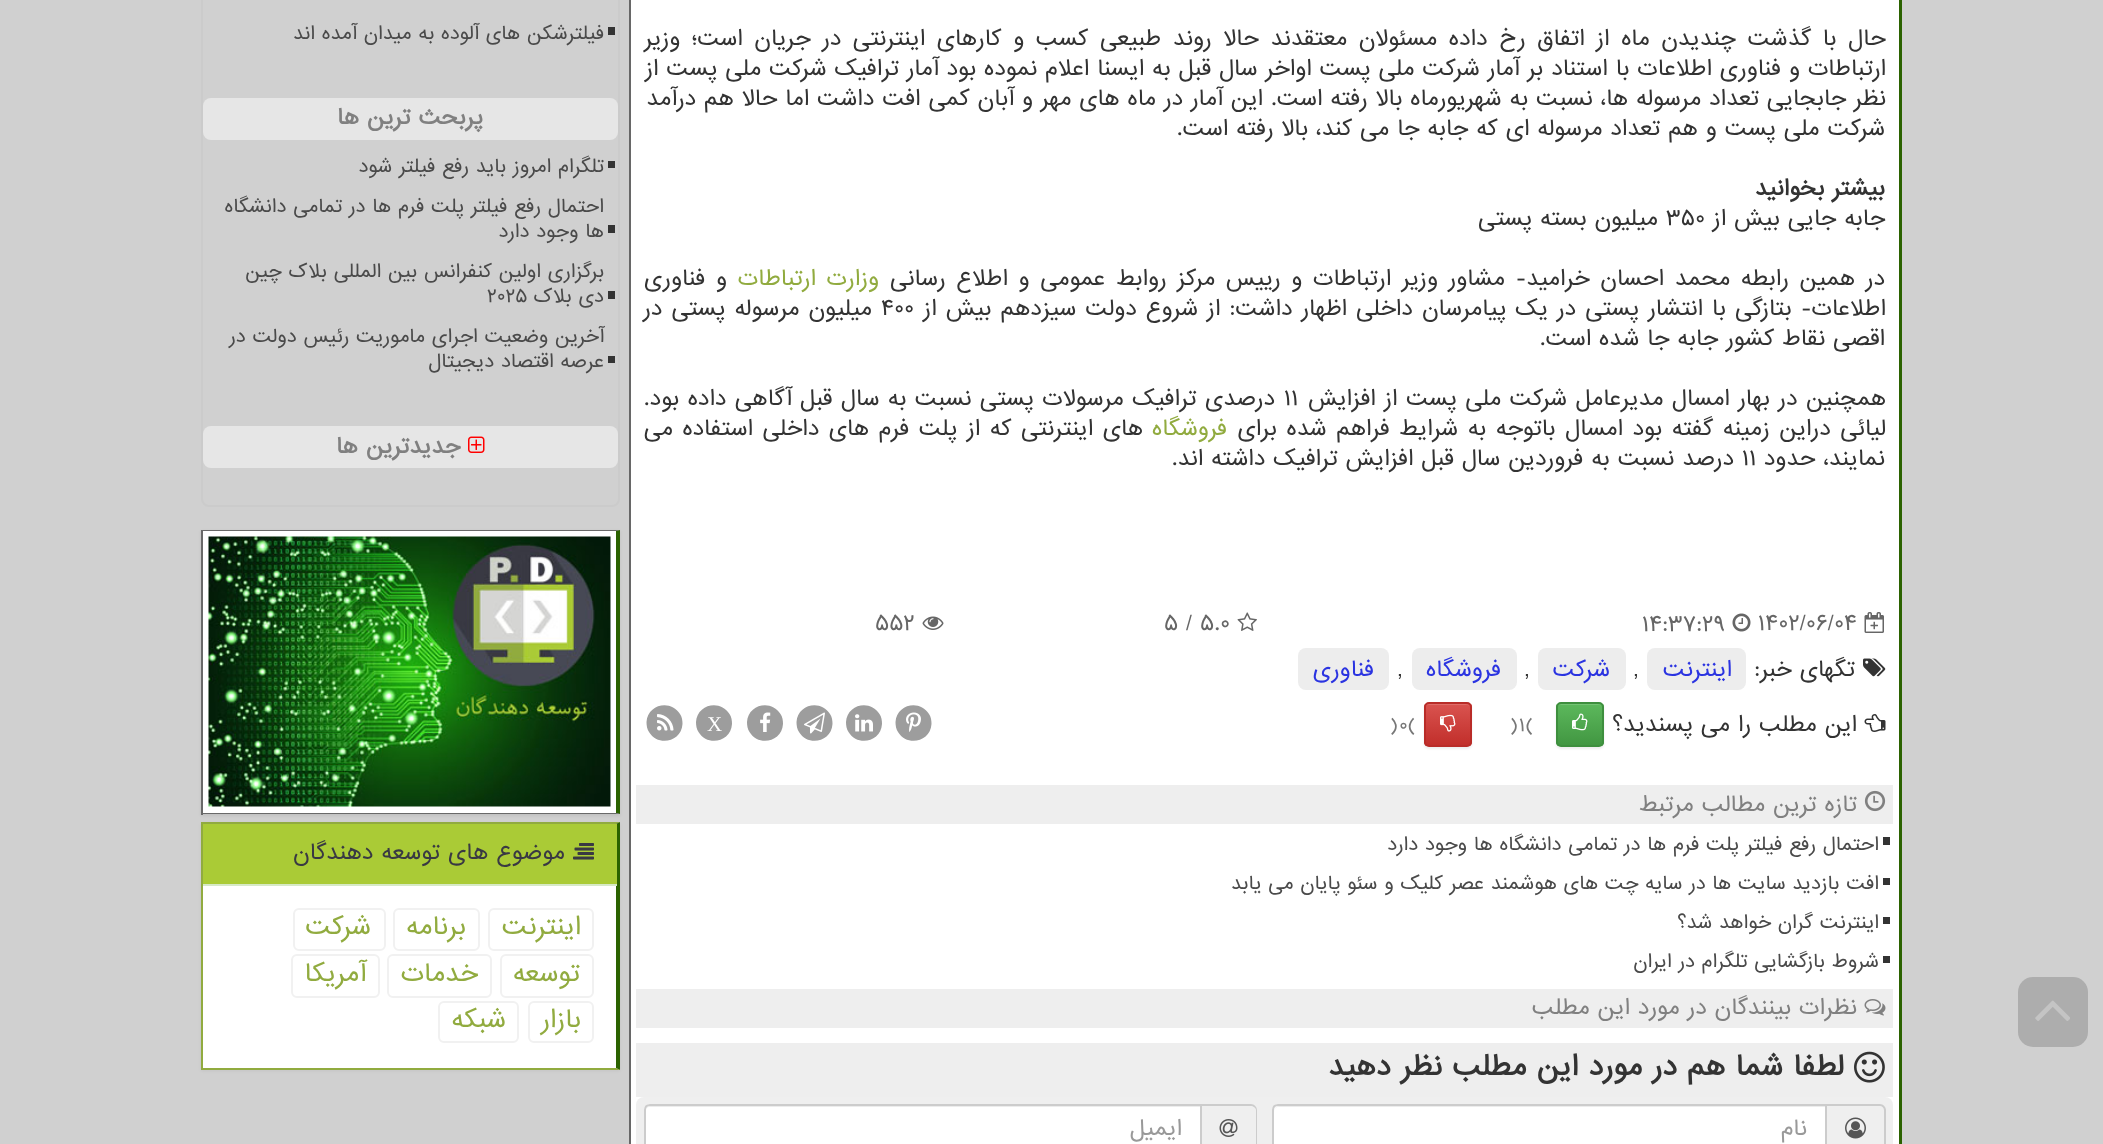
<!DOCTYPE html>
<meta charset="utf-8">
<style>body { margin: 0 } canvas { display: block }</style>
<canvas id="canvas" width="2103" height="1144"></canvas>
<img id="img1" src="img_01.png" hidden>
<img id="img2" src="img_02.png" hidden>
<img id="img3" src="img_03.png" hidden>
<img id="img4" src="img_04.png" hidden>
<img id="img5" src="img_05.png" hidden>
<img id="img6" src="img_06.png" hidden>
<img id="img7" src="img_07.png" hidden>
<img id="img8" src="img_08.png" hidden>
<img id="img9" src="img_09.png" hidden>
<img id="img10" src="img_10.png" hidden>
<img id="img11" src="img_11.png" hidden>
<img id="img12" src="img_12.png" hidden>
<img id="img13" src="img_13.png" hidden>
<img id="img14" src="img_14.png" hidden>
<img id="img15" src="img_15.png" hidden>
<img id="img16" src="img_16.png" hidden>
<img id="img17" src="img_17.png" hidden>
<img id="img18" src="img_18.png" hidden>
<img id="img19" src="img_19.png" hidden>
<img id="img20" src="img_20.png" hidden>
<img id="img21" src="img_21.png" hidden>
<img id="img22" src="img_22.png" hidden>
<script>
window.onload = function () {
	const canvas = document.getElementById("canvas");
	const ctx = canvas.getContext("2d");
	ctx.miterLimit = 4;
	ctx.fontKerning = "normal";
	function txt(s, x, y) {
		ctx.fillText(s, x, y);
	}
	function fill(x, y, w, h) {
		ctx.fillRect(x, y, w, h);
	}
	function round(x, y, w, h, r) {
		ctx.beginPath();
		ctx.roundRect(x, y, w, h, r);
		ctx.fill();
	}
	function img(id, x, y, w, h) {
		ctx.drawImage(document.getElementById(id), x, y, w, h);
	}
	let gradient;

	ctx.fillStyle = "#D0D0D0";
	fill(0, 0, 2103, 1144);
	ctx.fillStyle = "#ADADAD";
	round(2018, 977, 70, 70, 15);
	img("img1", 2035, 1000, 35, 21);
	ctx.fillStyle = "#FFFFFF";
	fill(631, 0, 1268, 1144);
	ctx.fillStyle = "#2B6200";
	ctx.beginPath();
	ctx.moveTo(1902, -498);
	ctx.lineTo(1902, 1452);
	ctx.lineTo(1899, 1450);
	ctx.lineTo(1899, -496);
	ctx.closePath();
	ctx.fill();
	ctx.fillStyle = "#676767";
	fill(629, 0, 2, 1144);
	img("img2", 1864, 612, 20, 21);
	img("img3", 1732, 613, 19, 19);
	img("img4", 1237, 612, 20, 19);
	img("img5", 922, 616, 22, 14);
	img("img6", 1863, 658, 23, 19);
	ctx.fillStyle = "#EDEDED";
	round(1647, 648, 99, 42, 8);
	round(1538, 648, 88, 42, 8);
	round(1412, 648, 105, 42, 8);
	round(1298, 648, 91, 42, 8);
	img("img7", 1864, 714, 22, 18);
	ctx.fillStyle = "rgba(0, 0, 0, 0.07)";
	ctx.filter = "blur(1px)";
	ctx.beginPath();
	ctx.roundRect(1556, 704, 48, 45, 5);
	ctx.fill();
	ctx.filter = "none";
	ctx.save();
	ctx.beginPath();
	ctx.roundRect(1556, 702, 48, 45, 5);
	ctx.clip();
	gradient = ctx.createLinearGradient(1580, 704, 1580, 746);
	gradient.addColorStop(0, "#5CB85C");
	gradient.addColorStop(1, "#419641");
	ctx.fillStyle = gradient;
	fill(1556, 704, 48, 42);
	ctx.restore();
	ctx.fillStyle = "#74C374";
	ctx.beginPath();
	ctx.moveTo(1560, 705);
	ctx.lineTo(1599, 705);
	ctx.bezierCurveTo(1601, 705, 1602, 706, 1602, 708);
	ctx.bezierCurveTo(1602, 703, 1597, 704, 1592, 704);
	ctx.lineTo(1566, 704);
	ctx.bezierCurveTo(1562, 704, 1557, 703, 1557, 708);
	ctx.bezierCurveTo(1557, 706, 1558, 705, 1560, 705);
	ctx.closePath();
	ctx.fill();
	ctx.beginPath();
	ctx.roundRect(1557, 703, 46, 43, 4);
	ctx.strokeStyle = "#3E8F3E";
	ctx.lineWidth = 2;
	ctx.stroke();
	img("img8", 1572, 713, 16, 18);
	ctx.fillStyle = "rgba(0, 0, 0, 0.07)";
	ctx.filter = "blur(1px)";
	ctx.beginPath();
	ctx.roundRect(1424, 704, 48, 45, 5);
	ctx.fill();
	ctx.filter = "none";
	ctx.save();
	ctx.beginPath();
	ctx.roundRect(1424, 702, 48, 45, 5);
	ctx.clip();
	gradient = ctx.createLinearGradient(1448, 704, 1448, 746);
	gradient.addColorStop(0, "#D9534F");
	gradient.addColorStop(1, "#C12E2A");
	ctx.fillStyle = gradient;
	fill(1424, 704, 48, 42);
	ctx.restore();
	ctx.fillStyle = "#DF6D69";
	ctx.beginPath();
	ctx.moveTo(1428, 705);
	ctx.lineTo(1467, 705);
	ctx.bezierCurveTo(1469, 705, 1470, 706, 1470, 708);
	ctx.bezierCurveTo(1470, 703, 1465, 704, 1460, 704);
	ctx.lineTo(1434, 704);
	ctx.bezierCurveTo(1430, 704, 1425, 703, 1425, 708);
	ctx.bezierCurveTo(1425, 706, 1426, 705, 1428, 705);
	ctx.closePath();
	ctx.fill();
	ctx.beginPath();
	ctx.roundRect(1425, 703, 46, 43, 4);
	ctx.strokeStyle = "#B92C28";
	ctx.stroke();
	img("img9", 1440, 714, 16, 18);
	ctx.fillStyle = "#9D9D9D";
	ctx.beginPath();
	ctx.moveTo(929, 714);
	ctx.bezierCurveTo(931, 717, 931.5, 720.5, 931.5, 724);
	ctx.bezierCurveTo(930.5, 742, 907, 747, 898, 732);
	ctx.bezierCurveTo(896, 729, 895.5, 725.5, 895.5, 722);
	ctx.bezierCurveTo(896.5, 704, 920, 699, 929, 714);
	ctx.closePath();
	ctx.fill();
	img("img10", 906, 712, 15, 20);
	ctx.beginPath();
	ctx.moveTo(879.5, 714);
	ctx.bezierCurveTo(881.5, 717, 882, 720.5, 882, 724);
	ctx.bezierCurveTo(881, 742, 857.5, 747, 848.5, 732);
	ctx.bezierCurveTo(846.5, 729, 846, 725.5, 846, 722);
	ctx.bezierCurveTo(847, 704, 870.5, 699, 879.5, 714);
	ctx.closePath();
	ctx.fill();
	img("img11", 855, 714, 18, 18);
	ctx.beginPath();
	ctx.moveTo(830, 714);
	ctx.bezierCurveTo(832, 717, 832.5, 720.5, 832.5, 724);
	ctx.bezierCurveTo(831.5, 742, 808, 747, 799, 732);
	ctx.bezierCurveTo(797, 729, 796.5, 725.5, 796.5, 722);
	ctx.bezierCurveTo(797.5, 704, 821, 699, 830, 714);
	ctx.closePath();
	ctx.fill();
	img("img12", 804, 712, 21, 22);
	ctx.beginPath();
	ctx.moveTo(780.5, 714);
	ctx.bezierCurveTo(782.5, 717, 783, 720.5, 783, 724);
	ctx.bezierCurveTo(782, 742, 758.5, 747, 749.5, 732);
	ctx.bezierCurveTo(747.5, 729, 747, 725.5, 747, 722);
	ctx.bezierCurveTo(748, 704, 771.5, 699, 780.5, 714);
	ctx.closePath();
	ctx.fill();
	img("img13", 760, 712, 11, 20);
	ctx.beginPath();
	ctx.moveTo(729.5, 714);
	ctx.bezierCurveTo(731.5, 717, 732, 720.5, 732, 724);
	ctx.bezierCurveTo(731, 742, 707.5, 747, 698.5, 732);
	ctx.bezierCurveTo(696.5, 729, 696, 725.5, 696, 722);
	ctx.bezierCurveTo(697, 704, 720.5, 699, 729.5, 714);
	ctx.closePath();
	ctx.fill();
	ctx.beginPath();
	ctx.moveTo(680, 714);
	ctx.bezierCurveTo(682, 717, 682.5, 720.5, 682.5, 724);
	ctx.bezierCurveTo(681.5, 742, 658, 747, 649, 732);
	ctx.bezierCurveTo(647, 729, 646.5, 725.5, 646.5, 722);
	ctx.bezierCurveTo(647.5, 704, 671, 699, 680, 714);
	ctx.closePath();
	ctx.fill();
	img("img14", 657, 714, 17, 17);
	ctx.fillStyle = "#EEEEEE";
	fill(636, 785, 1257, 39);
	img("img15", 1864, 790, 22, 22);
	ctx.fillStyle = "#333333";
	fill(1883, 837, 7, 8);
	fill(1883, 878, 7, 7);
	fill(1883, 917, 7, 7);
	fill(1883, 956, 7, 7);
	ctx.fillStyle = "#EEEEEE";
	fill(636, 989, 1257, 39);
	img("img16", 1864, 999, 22, 17);
	fill(636, 1043, 1257, 54);
	img("img17", 1854, 1051, 31, 32);
	ctx.fillStyle = "#EFEFEF";
	round(636, 1097, 1257, 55, 8);
	ctx.fillStyle = "#CCCCCC";
	ctx.beginPath();
	ctx.moveTo(1827, 1104);
	ctx.lineTo(1880, 1104);
	ctx.bezierCurveTo(1883, 1104, 1886, 1107, 1886, 1110);
	ctx.lineTo(1886, 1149);
	ctx.bezierCurveTo(1886, 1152, 1883, 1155, 1880, 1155);
	ctx.lineTo(1827, 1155);
	ctx.closePath();
	ctx.moveTo(1827, 1106);
	ctx.lineTo(1880, 1106);
	ctx.bezierCurveTo(1882, 1106, 1884, 1108, 1884, 1110);
	ctx.lineTo(1884, 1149);
	ctx.bezierCurveTo(1884, 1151, 1882, 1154, 1880, 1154);
	ctx.lineTo(1827, 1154);
	ctx.closePath();
	ctx.fill("evenodd");
	img("img18", 1845, 1117, 21, 22);
	ctx.fillStyle = "#FFFFFF";
	ctx.beginPath();
	ctx.moveTo(1278, 1104);
	ctx.lineTo(1827, 1104);
	ctx.lineTo(1827, 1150);
	ctx.lineTo(1278, 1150);
	ctx.bezierCurveTo(1274.5, 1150, 1272, 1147.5, 1272, 1144);
	ctx.lineTo(1272, 1110);
	ctx.bezierCurveTo(1272, 1106.5, 1274.5, 1104, 1278, 1104);
	ctx.closePath();
	ctx.fill();
	ctx.fillStyle = "#ECECEC";
	ctx.beginPath();
	ctx.moveTo(1278, 1107);
	ctx.lineTo(1826, 1107);
	ctx.lineTo(1826, 1106);
	ctx.lineTo(1279, 1106);
	ctx.bezierCurveTo(1276, 1106, 1274, 1109, 1274, 1112);
	ctx.bezierCurveTo(1274, 1109, 1276, 1107, 1278, 1107);
	ctx.closePath();
	ctx.fill();
	ctx.beginPath();
	ctx.moveTo(1278, 1105);
	ctx.lineTo(1826, 1105);
	ctx.lineTo(1826, 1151);
	ctx.lineTo(1278, 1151);
	ctx.bezierCurveTo(1275, 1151, 1273, 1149, 1273, 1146);
	ctx.lineTo(1273, 1110);
	ctx.bezierCurveTo(1273, 1107, 1275, 1105, 1278, 1105);
	ctx.closePath();
	ctx.strokeStyle = "#CCCCCC";
	ctx.stroke();
	ctx.fillStyle = "#CCCCCC";
	ctx.beginPath();
	ctx.moveTo(1202, 1104);
	ctx.lineTo(1251, 1104);
	ctx.bezierCurveTo(1254, 1104, 1257, 1107, 1257, 1110);
	ctx.lineTo(1257, 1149);
	ctx.bezierCurveTo(1257, 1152, 1254, 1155, 1251, 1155);
	ctx.lineTo(1202, 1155);
	ctx.closePath();
	ctx.moveTo(1202, 1106);
	ctx.lineTo(1251, 1106);
	ctx.bezierCurveTo(1253, 1106, 1256, 1108, 1256, 1110);
	ctx.lineTo(1256, 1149);
	ctx.bezierCurveTo(1256, 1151, 1253, 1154, 1251, 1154);
	ctx.lineTo(1202, 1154);
	ctx.closePath();
	ctx.fill("evenodd");
	img("img19", 1219, 1119, 19, 18);
	ctx.fillStyle = "#FFFFFF";
	ctx.beginPath();
	ctx.moveTo(650, 1104);
	ctx.lineTo(1202, 1104);
	ctx.lineTo(1202, 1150);
	ctx.lineTo(650, 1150);
	ctx.bezierCurveTo(646.5, 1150, 644, 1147.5, 644, 1144);
	ctx.lineTo(644, 1110);
	ctx.bezierCurveTo(644, 1106.5, 646.5, 1104, 650, 1104);
	ctx.closePath();
	ctx.fill();
	ctx.fillStyle = "#ECECEC";
	ctx.beginPath();
	ctx.moveTo(650, 1107);
	ctx.lineTo(1200, 1107);
	ctx.lineTo(1200, 1106);
	ctx.lineTo(650, 1106);
	ctx.bezierCurveTo(647, 1106, 645, 1109, 645, 1112);
	ctx.bezierCurveTo(645, 1109, 647, 1107, 650, 1107);
	ctx.closePath();
	ctx.fill();
	ctx.beginPath();
	ctx.moveTo(650, 1105);
	ctx.lineTo(1201, 1105);
	ctx.lineTo(1201, 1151);
	ctx.lineTo(650, 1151);
	ctx.bezierCurveTo(647, 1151, 645, 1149, 645, 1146);
	ctx.lineTo(645, 1110);
	ctx.bezierCurveTo(645, 1107, 647, 1105, 650, 1105);
	ctx.closePath();
	ctx.stroke();
	ctx.beginPath();
	ctx.roundRect(202, -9, 417, 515, 7);
	ctx.strokeStyle = "#CBCBCB";
	ctx.stroke();
	ctx.fillStyle = "#333333";
	fill(608, 27, 7, 8);
	ctx.fillStyle = "#E6E6E6";
	round(203, 98, 415, 42, 8);
	ctx.fillStyle = "#333333";
	fill(608, 161, 7, 7);
	fill(608, 225, 7, 8);
	fill(608, 291, 7, 8);
	fill(608, 356, 7, 7);
	ctx.fillStyle = "#E6E6E6";
	round(203, 426, 415, 42, 8);
	img("img20", 468, 436, 17, 17);
	ctx.fillStyle = "rgba(0, 0, 0, 0.07)";
	ctx.filter = "blur(1.5px)";
	ctx.beginPath();
	ctx.rect(201, 531, 419, 285);
	ctx.fill();
	ctx.filter = "none";
	ctx.fillStyle = "#FFFFFF";
	fill(203, 531, 413, 282);
	ctx.fillStyle = "#696969";
	ctx.beginPath();
	ctx.moveTo(201, 530);
	ctx.lineTo(620, 530);
	ctx.lineTo(616, 531);
	ctx.lineTo(202, 531);
	ctx.closePath();
	ctx.fill();
	ctx.fillStyle = "#2B6200";
	ctx.beginPath();
	ctx.moveTo(620, 530);
	ctx.lineTo(620, 814);
	ctx.lineTo(616, 813);
	ctx.lineTo(616, 531);
	ctx.closePath();
	ctx.fill();
	ctx.fillStyle = "#696969";
	ctx.beginPath();
	ctx.moveTo(620, 814);
	ctx.lineTo(201, 814);
	ctx.lineTo(202, 813);
	ctx.lineTo(616, 813);
	ctx.closePath();
	ctx.fill();
	fill(201, 530, 2, 285);
	img("img21", 208, 536, 403, 271);
	ctx.fillStyle = "rgba(0, 0, 0, 0.05)";
	ctx.filter = "blur(1.5px)";
	ctx.beginPath();
	ctx.rect(201, 824, 419, 247);
	ctx.fill();
	ctx.filter = "none";
	ctx.fillStyle = "#FFFFFF";
	fill(203, 886, 413, 182);
	ctx.fillStyle = "#91AB3F";
	ctx.beginPath();
	ctx.moveTo(201, 822);
	ctx.lineTo(620, 822);
	ctx.lineTo(616, 824);
	ctx.lineTo(202, 824);
	ctx.closePath();
	ctx.fill();
	ctx.fillStyle = "#2B6200";
	ctx.beginPath();
	ctx.moveTo(620, 822);
	ctx.lineTo(620, 1070);
	ctx.lineTo(616, 1068);
	ctx.lineTo(616, 824);
	ctx.closePath();
	ctx.fill();
	ctx.fillStyle = "#91AB3F";
	ctx.beginPath();
	ctx.moveTo(620, 1070);
	ctx.lineTo(201, 1070);
	ctx.lineTo(202, 1068);
	ctx.lineTo(616, 1068);
	ctx.closePath();
	ctx.fill();
	fill(201, 822, 2, 248);
	ctx.fillStyle = "#AACB36";
	fill(203, 824, 414, 60);
	ctx.fillStyle = "#D6E9C6";
	fill(203, 884, 414, 2);
	img("img22", 573, 843, 21, 17);
	ctx.beginPath();
	ctx.roundRect(489, 909, 104, 41, 5);
	ctx.strokeStyle = "#F1F1F1";
	ctx.stroke();
	ctx.beginPath();
	ctx.roundRect(394, 909, 85, 41, 5);
	ctx.stroke();
	ctx.beginPath();
	ctx.roundRect(294, 909, 91, 41, 5);
	ctx.stroke();
	ctx.beginPath();
	ctx.roundRect(501, 955, 92, 42, 5);
	ctx.stroke();
	ctx.beginPath();
	ctx.roundRect(388, 955, 103, 42, 5);
	ctx.stroke();
	ctx.beginPath();
	ctx.roundRect(292, 955, 87, 42, 5);
	ctx.stroke();
	ctx.beginPath();
	ctx.roundRect(529, 1002, 64, 40, 5);
	ctx.stroke();
	ctx.beginPath();
	ctx.roundRect(439, 1002, 79, 40, 5);
	ctx.stroke();
	ctx.wordSpacing = "3.7px";
	ctx.direction = "rtl";
	ctx.font = "21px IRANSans";
	ctx.fillStyle = "#333333";
	txt("حال با گذشت چندیدن ماه از اتفاق رخ داده مسئولان معتقدند حالا روند طبیعی کسب و کارهای اینترنتی در جریان است؛ وزیر", 1886, 45);
	ctx.wordSpacing = "0px";
	txt("ارتباطات و فناوری اطلاعات با استناد بر آمار شرکت ملی پست اواخر سال قبل به ایسنا اعلام نموده بود آمار ترافیک شرکت ملی پست از", 1886, 75);
	txt("نظر جابجایی تعداد مرسوله ها، نسبت به شهریورماه بالا رفته است. این آمار در ماه های مهر و آبان کمی افت داشت اما حالا هم درآمد", 1886, 105);
	txt("شرکت ملی پست و هم تعداد مرسوله ای که جابه جا می کند، بالا رفته است.", 1885, 135);
	ctx.font = "bold 21px IRANSans";
	txt("بیشتر بخوانید", 1885, 195);
	ctx.font = "21px IRANSans";
	txt("جابه جایی بیش از", 1885, 225);
	ctx.direction = "ltr";
	txt("۳۵۰", 1666, 225);
	ctx.direction = "rtl";
	txt("میلیون بسته پستی", 1658, 225);
	ctx.wordSpacing = "2.75px";
	txt("در همین رابطه محمد احسان خرامید- مشاور وزیر ارتباطات و رییس مرکز روابط عمومی و اطلاع رسانی", 1885, 285);
	ctx.fillStyle = "#91AB3F";
	txt("وزارت ارتباطات", 879, 285);
	ctx.fillStyle = "#333333";
	txt("و فناوری", 727, 285);
	ctx.wordSpacing = "1.1px";
	txt("اطلاعات- بتازگی با انتشار پستی در یک پیامرسان داخلی اظهار داشت: از شروع دولت سیزدهم بیش از", 1886, 315);
	ctx.wordSpacing = "0px";
	ctx.direction = "ltr";
	txt("۴۰۰", 881, 315);
	ctx.wordSpacing = "1.1px";
	ctx.direction = "rtl";
	txt("میلیون مرسوله پستی در", 872, 315);
	ctx.wordSpacing = "0px";
	txt("اقصی نقاط کشور جابه جا شده است.", 1885, 345);
	ctx.wordSpacing = "0.5px";
	txt("همچنین در بهار امسال مدیرعامل شرکت ملی پست از افزایش", 1886, 405);
	ctx.wordSpacing = "0px";
	ctx.direction = "ltr";
	txt("۱۱", 1284, 405);
	ctx.wordSpacing = "0.5px";
	ctx.direction = "rtl";
	txt("درصدی ترافیک مرسولات پستی نسبت به سال قبل آگاهی داده بود.", 1275, 405);
	ctx.wordSpacing = "1.6px";
	txt("لیائی دراین زمینه گفته بود امسال باتوجه به شرایط فراهم شده برای", 1886, 435);
	ctx.wordSpacing = "0px";
	ctx.fillStyle = "#91AB3F";
	txt("فروشگاه", 1227, 435);
	ctx.wordSpacing = "1.6px";
	ctx.fillStyle = "#333333";
	txt("های اینترنتی که از پلت فرم های داخلی استفاده می", 1143, 435);
	ctx.wordSpacing = "0px";
	txt("نمایند، حدود", 1885, 465);
	ctx.direction = "ltr";
	txt("۱۱", 1742, 465);
	ctx.direction = "rtl";
	txt("درصد نسبت به فروردین سال قبل افزایش ترافیک داشته اند.", 1734, 465);
	ctx.direction = "ltr";
	ctx.fillStyle = "#666666";
	txt("1402/06/04", 1758, 630);
	txt("14:37:29", 1642, 631);
	txt("5.0", 1200, 630);
	txt("/", 1186, 630);
	txt("5", 1164, 630);
	txt("552", 875, 630);
	ctx.direction = "rtl";
	ctx.fillStyle = "#333333";
	txt("تگهای خبر:", 1855, 676);
	ctx.fillStyle = "#2B34E1";
	txt("اینترنت", 1732, 676);
	ctx.direction = "ltr";
	ctx.fillStyle = "#333333";
	txt(",", 1633, 676);
	ctx.direction = "rtl";
	ctx.fillStyle = "#2B34E1";
	txt("شركت", 1610, 676);
	ctx.direction = "ltr";
	ctx.fillStyle = "#333333";
	txt(",", 1524, 676);
	ctx.direction = "rtl";
	ctx.fillStyle = "#2B34E1";
	txt("فروشگاه", 1501, 676);
	ctx.direction = "ltr";
	ctx.fillStyle = "#333333";
	txt(",", 1397, 676);
	ctx.direction = "rtl";
	ctx.fillStyle = "#2B34E1";
	txt("فناوری", 1374, 676);
	ctx.fillStyle = "#333333";
	txt("این مطلب را می پسندید؟", 1857, 731);
	ctx.direction = "ltr";
	ctx.font = "18px IRANSans";
	ctx.fillStyle = "#777777";
	txt("1(", 1519, 731);
	txt(")", 1510, 731);
	txt("0(", 1399, 731);
	txt(")", 1390, 731);
	ctx.font = "21px Liberation Serif";
	ctx.fillStyle = "#FFFFFF";
	txt("X", 707, 731);
	ctx.direction = "rtl";
	ctx.font = "21px IRANSans";
	ctx.fillStyle = "#808080";
	txt("تازه ترین مطالب مرتبط", 1857, 811);
	ctx.font = "18px IRANSans";
	ctx.fillStyle = "#4A4A4A";
	txt("احتمال رفع فیلتر پلت فرم ها در تمامی دانشگاه ها وجود دارد", 1879, 850);
	txt("افت بازدید سایت ها در سایه چت های هوشمند عصر کلیک و سئو پایان می یابد", 1879, 889);
	txt("اینترنت گران خواهد شد؟", 1879, 928);
	txt("شروط بازگشایی تلگرام در ایران", 1879, 967);
	ctx.font = "21px IRANSans";
	ctx.fillStyle = "#808080";
	txt("نظرات بینندگان در مورد این مطلب", 1857, 1014);
	ctx.font = "bold 27px IRANSans";
	ctx.fillStyle = "#333333";
	txt("لطفا شما هم", 1844, 1075);
	txt("در مورد این مطلب", 1677, 1075);
	txt("نظر دهید", 1442, 1075);
	ctx.font = "21px IRANSans";
	ctx.fillStyle = "#999999";
	txt("نام", 1807, 1135);
	txt("ایمیل", 1182, 1135);
	ctx.font = "18px IRANSans";
	ctx.fillStyle = "#4A4A4A";
	txt("فیلترشکن های آلوده به میدان آمده اند", 604, 39);
	ctx.font = "bold 21px IRANSans";
	ctx.fillStyle = "#808080";
	txt("پربحث ترین ها", 483, 124);
	ctx.font = "18px IRANSans";
	ctx.fillStyle = "#4A4A4A";
	txt("تلگرام امروز باید رفع فیلتر شود", 604, 172);
	txt("احتمال رفع فیلتر پلت فرم ها در تمامی دانشگاه", 604, 212);
	txt("ها وجود دارد", 604, 237);
	txt("برگزاری اولین کنفرانس بین المللی بلاک چین", 604, 277);
	txt("دی بلاک", 604, 302);
	ctx.direction = "ltr";
	txt("۲۰۲۵", 487, 302);
	ctx.direction = "rtl";
	txt("آخرین وضعیت اجرای ماموریت رئیس دولت در", 604, 342);
	txt("عرصه اقتصاد دیجیتال", 604, 367);
	ctx.font = "bold 21px IRANSans";
	ctx.fillStyle = "#808080";
	txt("جدیدترین ها", 460, 453);
	ctx.font = "21px IRANSans";
	ctx.fillStyle = "#393943";
	txt("موضوع های توسعه دهندگان", 565, 859);
	ctx.font = "24px IRANSans";
	ctx.fillStyle = "#91AB3F";
	txt("اینترنت", 581, 934);
	txt("برنامه", 466, 934);
	txt("شركت", 371, 934);
	txt("توسعه", 580, 981);
	txt("خدمات", 478, 981);
	txt("آمریكا", 366, 981);
	txt("بازار", 581, 1027);
	txt("شبكه", 506, 1027);
};
</script>
